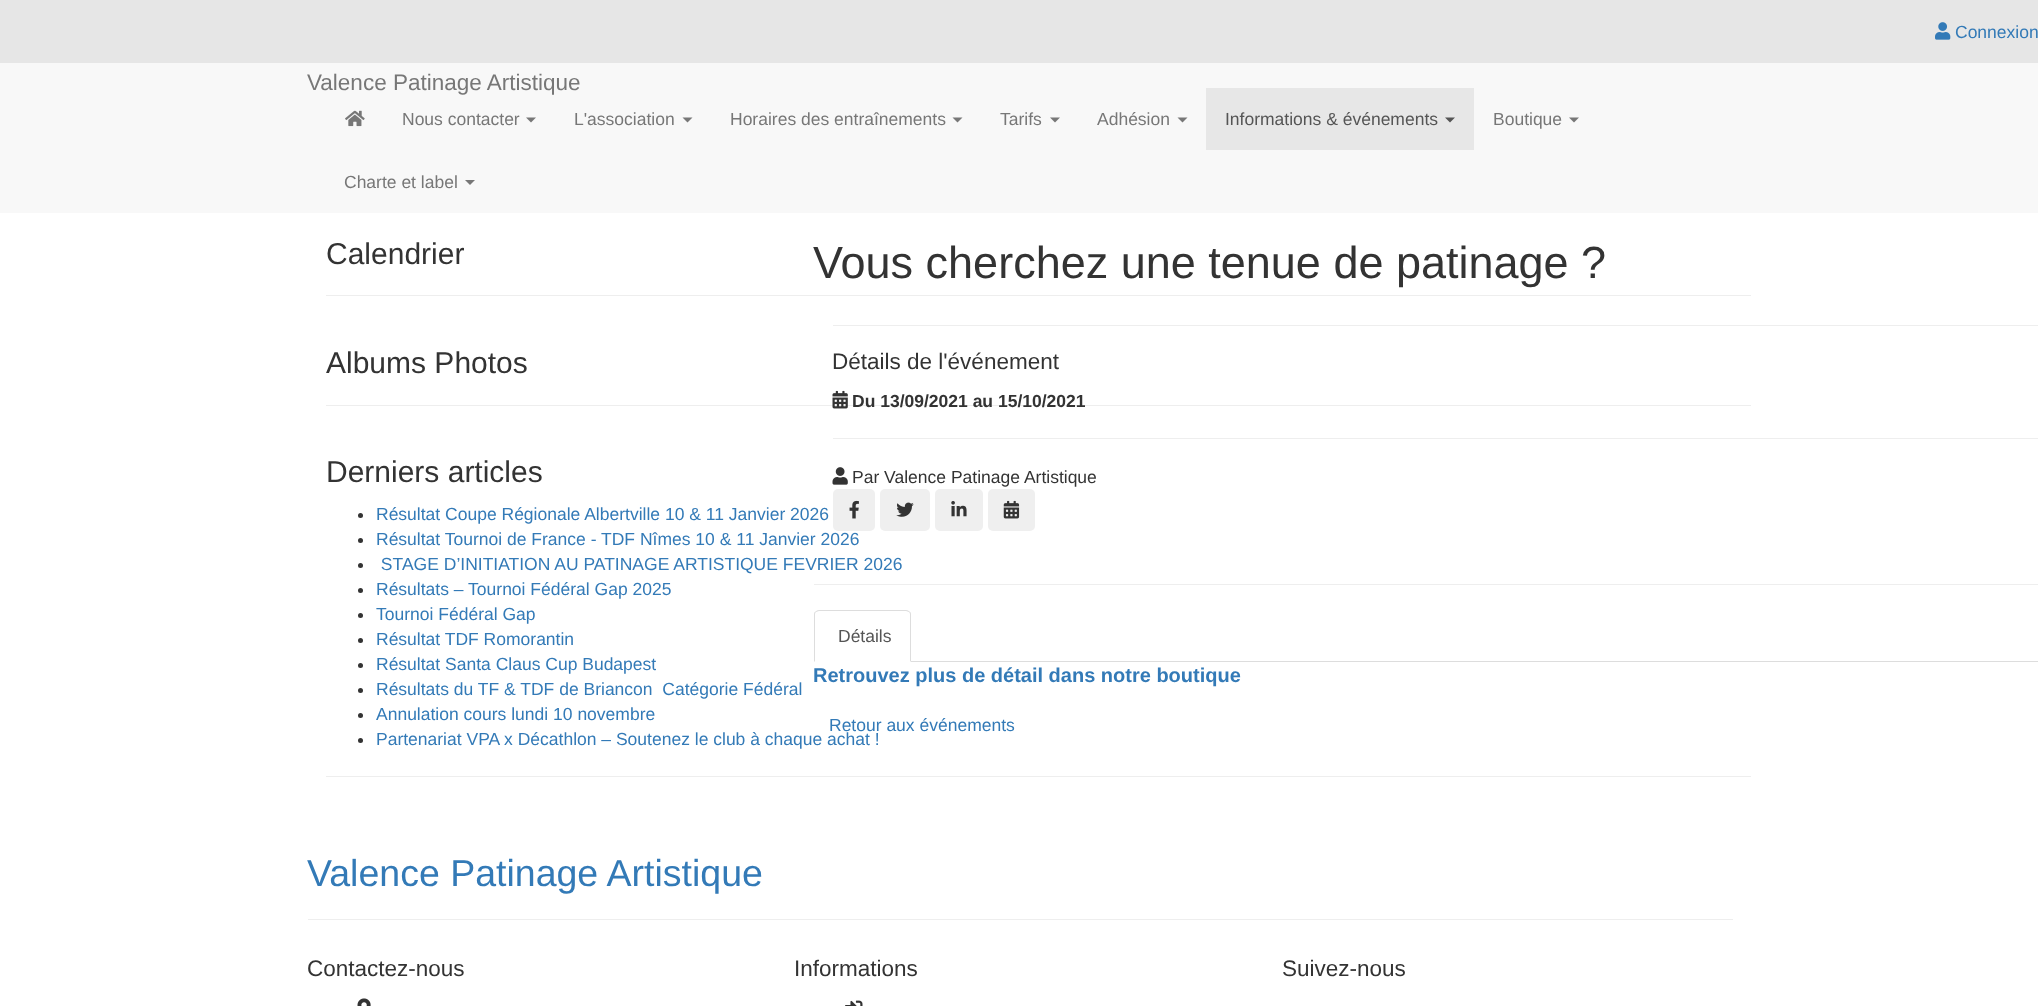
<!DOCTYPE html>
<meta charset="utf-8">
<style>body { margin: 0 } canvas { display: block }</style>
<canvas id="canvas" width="2038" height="1006"></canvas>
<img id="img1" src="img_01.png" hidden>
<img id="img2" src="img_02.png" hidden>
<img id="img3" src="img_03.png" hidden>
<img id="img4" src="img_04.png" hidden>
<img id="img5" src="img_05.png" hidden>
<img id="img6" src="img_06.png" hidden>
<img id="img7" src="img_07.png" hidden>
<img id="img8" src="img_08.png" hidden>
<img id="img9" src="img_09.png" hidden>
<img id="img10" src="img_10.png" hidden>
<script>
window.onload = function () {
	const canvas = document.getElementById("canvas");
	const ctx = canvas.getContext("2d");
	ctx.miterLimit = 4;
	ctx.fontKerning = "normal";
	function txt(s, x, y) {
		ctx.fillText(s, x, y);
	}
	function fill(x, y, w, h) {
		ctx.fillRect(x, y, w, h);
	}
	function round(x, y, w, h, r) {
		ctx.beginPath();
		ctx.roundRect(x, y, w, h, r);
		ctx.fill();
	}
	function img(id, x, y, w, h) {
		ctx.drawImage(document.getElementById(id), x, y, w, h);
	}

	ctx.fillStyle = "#FFFFFF";
	fill(0, 0, 2038, 1006);
	ctx.fillStyle = "#E6E6E6";
	fill(0, 0, 2038, 63);
	img("img1", 1935, 22, 16, 18);
	ctx.fillStyle = "#F8F8F8";
	fill(0, 63, 2038, 150);
	img("img2", 345, 110, 20, 17);
	ctx.fillStyle = "#777777";
	ctx.beginPath();
	ctx.moveTo(526, 117.5);
	ctx.lineTo(536, 117.5);
	ctx.lineTo(531, 122.5);
	ctx.closePath();
	ctx.fill();
	ctx.beginPath();
	ctx.moveTo(682.5, 117.5);
	ctx.lineTo(692.5, 117.5);
	ctx.lineTo(687.5, 122.5);
	ctx.closePath();
	ctx.fill();
	ctx.beginPath();
	ctx.moveTo(952.5, 117.5);
	ctx.lineTo(962.5, 117.5);
	ctx.lineTo(957.5, 122.5);
	ctx.closePath();
	ctx.fill();
	ctx.beginPath();
	ctx.moveTo(1050, 117.5);
	ctx.lineTo(1060, 117.5);
	ctx.lineTo(1055, 122.5);
	ctx.closePath();
	ctx.fill();
	ctx.beginPath();
	ctx.moveTo(1177.5, 117.5);
	ctx.lineTo(1187.5, 117.5);
	ctx.lineTo(1182.5, 122.5);
	ctx.closePath();
	ctx.fill();
	ctx.fillStyle = "#E7E7E7";
	fill(1206, 88, 268, 62);
	ctx.fillStyle = "#555555";
	ctx.beginPath();
	ctx.moveTo(1445, 117.5);
	ctx.lineTo(1455, 117.5);
	ctx.lineTo(1450, 122.5);
	ctx.closePath();
	ctx.fill();
	ctx.fillStyle = "#777777";
	ctx.beginPath();
	ctx.moveTo(1569, 117.5);
	ctx.lineTo(1579, 117.5);
	ctx.lineTo(1574, 122.5);
	ctx.closePath();
	ctx.fill();
	ctx.beginPath();
	ctx.moveTo(465, 180);
	ctx.lineTo(475, 180);
	ctx.lineTo(470, 185);
	ctx.closePath();
	ctx.fill();
	ctx.fillStyle = "#EEEEEE";
	fill(326, 295, 1425, 1);
	fill(326, 405, 1425, 1);
	ctx.fillStyle = "#333333";
	ctx.beginPath();
	ctx.arc(360.5, 515.5, 2.5, 0, Math.PI * 2);
	ctx.fill();
	ctx.beginPath();
	ctx.arc(360.5, 540.5, 2.5, 0, Math.PI * 2);
	ctx.fill();
	ctx.beginPath();
	ctx.arc(360.5, 565.5, 2.5, 0, Math.PI * 2);
	ctx.fill();
	ctx.beginPath();
	ctx.arc(360.5, 590.5, 2.5, 0, Math.PI * 2);
	ctx.fill();
	ctx.beginPath();
	ctx.arc(360.5, 615.5, 2.5, 0, Math.PI * 2);
	ctx.fill();
	ctx.beginPath();
	ctx.arc(360.5, 640.5, 2.5, 0, Math.PI * 2);
	ctx.fill();
	ctx.beginPath();
	ctx.arc(360.5, 665.5, 2.5, 0, Math.PI * 2);
	ctx.fill();
	ctx.beginPath();
	ctx.arc(360.5, 690.5, 2.5, 0, Math.PI * 2);
	ctx.fill();
	ctx.beginPath();
	ctx.arc(360.5, 715.5, 2.5, 0, Math.PI * 2);
	ctx.fill();
	ctx.beginPath();
	ctx.arc(360.5, 740.5, 2.5, 0, Math.PI * 2);
	ctx.fill();
	ctx.fillStyle = "#EEEEEE";
	fill(326, 776, 1425, 1);
	fill(833, 325, 1205, 1);
	img("img3", 832, 390, 16, 19);
	fill(833, 438, 1205, 1);
	img("img4", 832, 467, 16, 18);
	ctx.fillStyle = "#EFEFEF";
	round(833, 489, 42, 42, 5);
	img("img5", 849, 500, 10, 19);
	round(880, 489, 50, 42, 5);
	img("img6", 896, 502, 18, 15);
	round(935, 489, 48, 42, 5);
	img("img7", 951, 501, 16, 16);
	round(988, 489, 47, 42, 5);
	img("img8", 1003, 500, 17, 19);
	ctx.fillStyle = "#EEEEEE";
	fill(814, 584, 1224, 1);
	ctx.fillStyle = "#DDDDDD";
	fill(911, 661, 1127, 1);
	ctx.beginPath();
	ctx.moveTo(819, 610);
	ctx.bezierCurveTo(817, 610, 816, 611, 815, 612);
	ctx.lineTo(816, 612);
	ctx.lineTo(819, 611);
	ctx.lineTo(906, 611);
	ctx.lineTo(909, 612);
	ctx.lineTo(910, 612);
	ctx.bezierCurveTo(909, 611, 908, 610, 906, 610);
	ctx.closePath();
	ctx.fill();
	ctx.beginPath();
	ctx.moveTo(910, 612);
	ctx.bezierCurveTo(911, 612, 911, 614, 911, 615);
	ctx.lineTo(911, 662);
	ctx.lineTo(910, 661);
	ctx.lineTo(910, 615);
	ctx.bezierCurveTo(910, 614, 910, 613, 909, 612);
	ctx.closePath();
	ctx.fill();
	ctx.beginPath();
	ctx.moveTo(815, 612);
	ctx.bezierCurveTo(814, 612, 814, 614, 814, 615);
	ctx.lineTo(814, 662);
	ctx.lineTo(815, 661);
	ctx.lineTo(815, 615);
	ctx.bezierCurveTo(815, 614, 815, 613, 816, 612);
	ctx.closePath();
	ctx.fill();
	ctx.fillStyle = "#EEEEEE";
	fill(308, 919, 1425, 1);
	img("img9", 357, 998, 14, 8);
	img("img10", 845, 1000, 18, 6);
	ctx.font = "17.5px Liberation Sans";
	ctx.fillStyle = "#337AB7";
	txt("Connexion", 1955, 38);
	ctx.font = "22.5px Liberation Sans";
	ctx.fillStyle = "#777777";
	txt("Valence Patinage Artistique", 307, 90);
	ctx.font = "17.5px Liberation Sans";
	txt("Nous contacter", 402, 125);
	txt("L'association", 574, 125);
	txt("Horaires des entraînements", 730, 125);
	txt("Tarifs", 1000, 125);
	txt("Adhésion", 1097, 125);
	ctx.fillStyle = "#555555";
	txt("Informations & événements", 1225, 125);
	ctx.fillStyle = "#777777";
	txt("Boutique", 1493, 125);
	txt("Charte et label", 344, 188);
	ctx.font = "30px Liberation Sans";
	ctx.fillStyle = "#333333";
	txt("Calendrier", 326, 264);
	txt("Albums Photos", 326, 373);
	txt("Derniers articles", 326, 482);
	ctx.font = "17.5px Liberation Sans";
	ctx.fillStyle = "#337AB7";
	txt("Résultat Coupe Régionale Albertville 10 & 11 Janvier 2026", 376, 520);
	txt("Résultat Tournoi de France - TDF Nîmes 10 & 11 Janvier 2026", 376, 545);
	txt("️ STAGE D’INITIATION AU PATINAGE ARTISTIQUE ️FEVRIER 2026", 376, 570);
	txt("Résultats – Tournoi Fédéral Gap 2025", 376, 595);
	txt("Tournoi Fédéral Gap", 376, 620);
	txt("Résultat TDF Romorantin", 376, 645);
	txt("Résultat Santa Claus Cup Budapest", 376, 670);
	txt("️Résultats du TF & TDF de Briancon ️ Catégorie Fédéral", 376, 695);
	txt("Annulation cours lundi 10 novembre", 376, 720);
	txt("Partenariat VPA x Décathlon – Soutenez le club à chaque achat !", 376, 745);
	ctx.font = "45px Liberation Sans";
	ctx.fillStyle = "#333333";
	txt("Vous cherchez une tenue de patinage ?", 813, 278);
	ctx.font = "22.5px Liberation Sans";
	txt("Détails de l'événement", 832, 369);
	ctx.font = "bold 17.5px Liberation Sans";
	txt("Du 13/09/2021 au 15/10/2021", 852, 407);
	ctx.font = "17.5px Liberation Sans";
	txt("Par Valence Patinage Artistique", 852, 483);
	ctx.fillStyle = "#555555";
	txt("Détails", 838, 642);
	ctx.font = "bold 20px Liberation Sans";
	ctx.fillStyle = "#337AB7";
	txt("Retrouvez plus de détail dans notre boutique", 813, 682);
	ctx.font = "17.5px Liberation Sans";
	txt("Retour aux événements", 829, 731);
	ctx.font = "37.5px Liberation Sans";
	txt("Valence Patinage Artistique", 307, 886);
	ctx.font = "22.5px Liberation Sans";
	ctx.fillStyle = "#333333";
	txt("Contactez-nous", 307, 976);
	txt("Informations", 794, 976);
	txt("Suivez-nous", 1282, 976);
};
</script>
